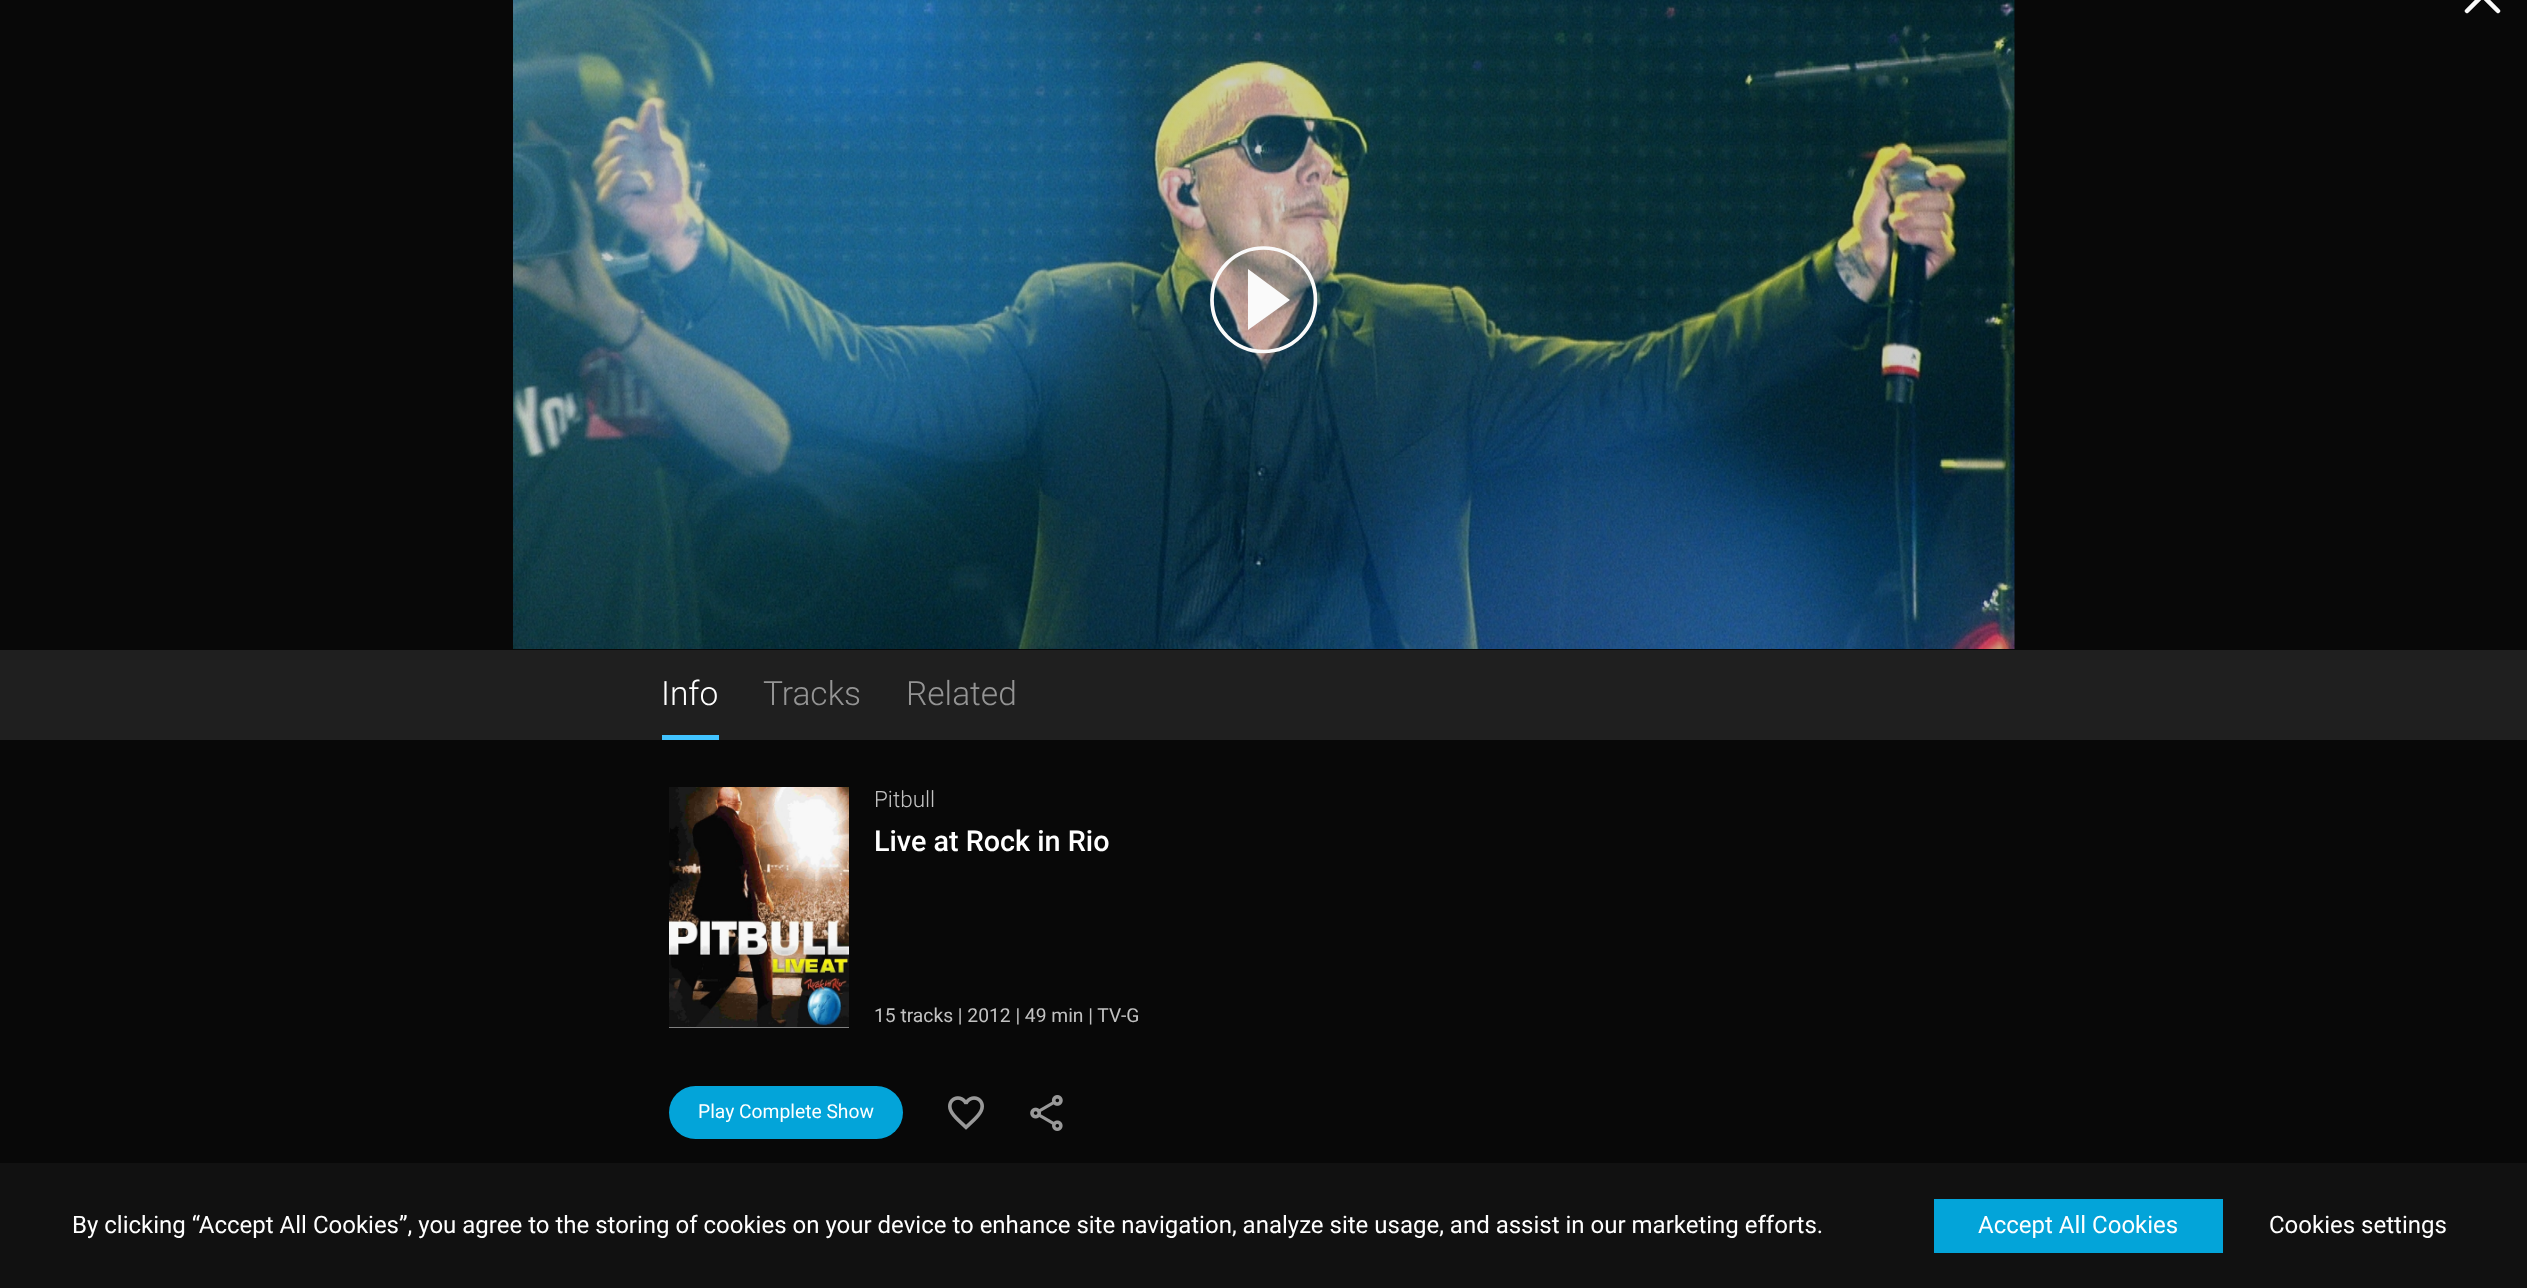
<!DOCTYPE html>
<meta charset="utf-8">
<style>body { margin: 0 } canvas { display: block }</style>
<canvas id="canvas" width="2527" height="1288"></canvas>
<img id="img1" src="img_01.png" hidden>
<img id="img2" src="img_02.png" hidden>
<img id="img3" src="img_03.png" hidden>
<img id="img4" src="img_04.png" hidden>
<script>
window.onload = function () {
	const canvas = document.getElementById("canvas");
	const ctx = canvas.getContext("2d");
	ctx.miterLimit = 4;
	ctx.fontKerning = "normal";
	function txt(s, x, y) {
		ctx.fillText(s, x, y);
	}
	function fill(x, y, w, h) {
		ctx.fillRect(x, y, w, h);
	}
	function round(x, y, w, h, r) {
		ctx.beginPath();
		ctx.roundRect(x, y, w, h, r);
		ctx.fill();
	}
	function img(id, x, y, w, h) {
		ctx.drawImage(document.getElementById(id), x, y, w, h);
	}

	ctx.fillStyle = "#080808";
	fill(0, 0, 2527, 1288);
	img("img1", 513, 0, 1502, 649);
	ctx.beginPath();
	ctx.moveTo(1315.5, 300);
	ctx.bezierCurveTo(1315.5, 328.5, 1292.5, 351.5, 1263.5, 351.5);
	ctx.bezierCurveTo(1235, 351.5, 1212, 328.5, 1212, 300);
	ctx.bezierCurveTo(1212, 271, 1235, 248, 1263.5, 248);
	ctx.bezierCurveTo(1292.5, 248, 1315.5, 271, 1315.5, 300);
	ctx.closePath();
	ctx.strokeStyle = "#FAFAFA";
	ctx.lineWidth = 3.7;
	ctx.stroke();
	ctx.fillStyle = "#FAFAFA";
	ctx.beginPath();
	ctx.moveTo(1248, 330);
	ctx.lineTo(1290, 300);
	ctx.lineTo(1248, 269);
	ctx.closePath();
	ctx.fill();
	ctx.beginPath();
	ctx.moveTo(2467, -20);
	ctx.lineTo(2498, 11);
	ctx.moveTo(2467, 11);
	ctx.lineTo(2498, -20);
	ctx.lineWidth = 4.5;
	ctx.lineCap = "round";
	ctx.stroke();
	ctx.fillStyle = "#1F1F1F";
	fill(0, 650, 2527, 90);
	ctx.fillStyle = "#41C3FF";
	fill(662, 735, 57, 5);
	img("img2", 669, 787, 180, 240);
	ctx.fillStyle = "#808080";
	fill(669, 1027, 180, 1);
	ctx.fillStyle = "#03A4D9";
	round(669, 1086, 234, 53, 26.5);
	img("img3", 948, 1096, 36, 34);
	img("img4", 1030, 1095, 33, 36);
	ctx.fillStyle = "#111111";
	fill(0, 1163, 2527, 125);
	ctx.fillStyle = "#03A4D9";
	fill(1934, 1199, 289, 54);
	ctx.font = "300 33.5px Roboto";
	ctx.fillStyle = "#FFFFFF";
	txt("Info", 661, 705);
	ctx.fillStyle = "#949494";
	txt("Tracks", 763, 705);
	txt("Related", 906, 705);
	ctx.font = "300 22.5px Roboto";
	ctx.fillStyle = "#C2C2C2";
	txt("Pitbull", 874, 807);
	ctx.font = "500 28.75px Roboto";
	ctx.fillStyle = "#FFFFFF";
	txt("Live at Rock in Rio", 874, 851);
	ctx.font = "19.25px Roboto";
	ctx.fillStyle = "#C2C2C2";
	txt("15 tracks | 2012 | 49 min | TV-G", 874, 1022);
	ctx.fillStyle = "#FFFFFF";
	txt("Play Complete Show", 698, 1118);
	ctx.font = "24px Roboto";
	txt("By clicking “Accept All Cookies”, you agree to the storing of cookies on your device to enhance site navigation, analyze site usage, and assist in our marketing efforts.", 72, 1233);
	txt("Accept All Cookies", 1978, 1233);
	txt("Cookies settings", 2269, 1233);
};
</script>
